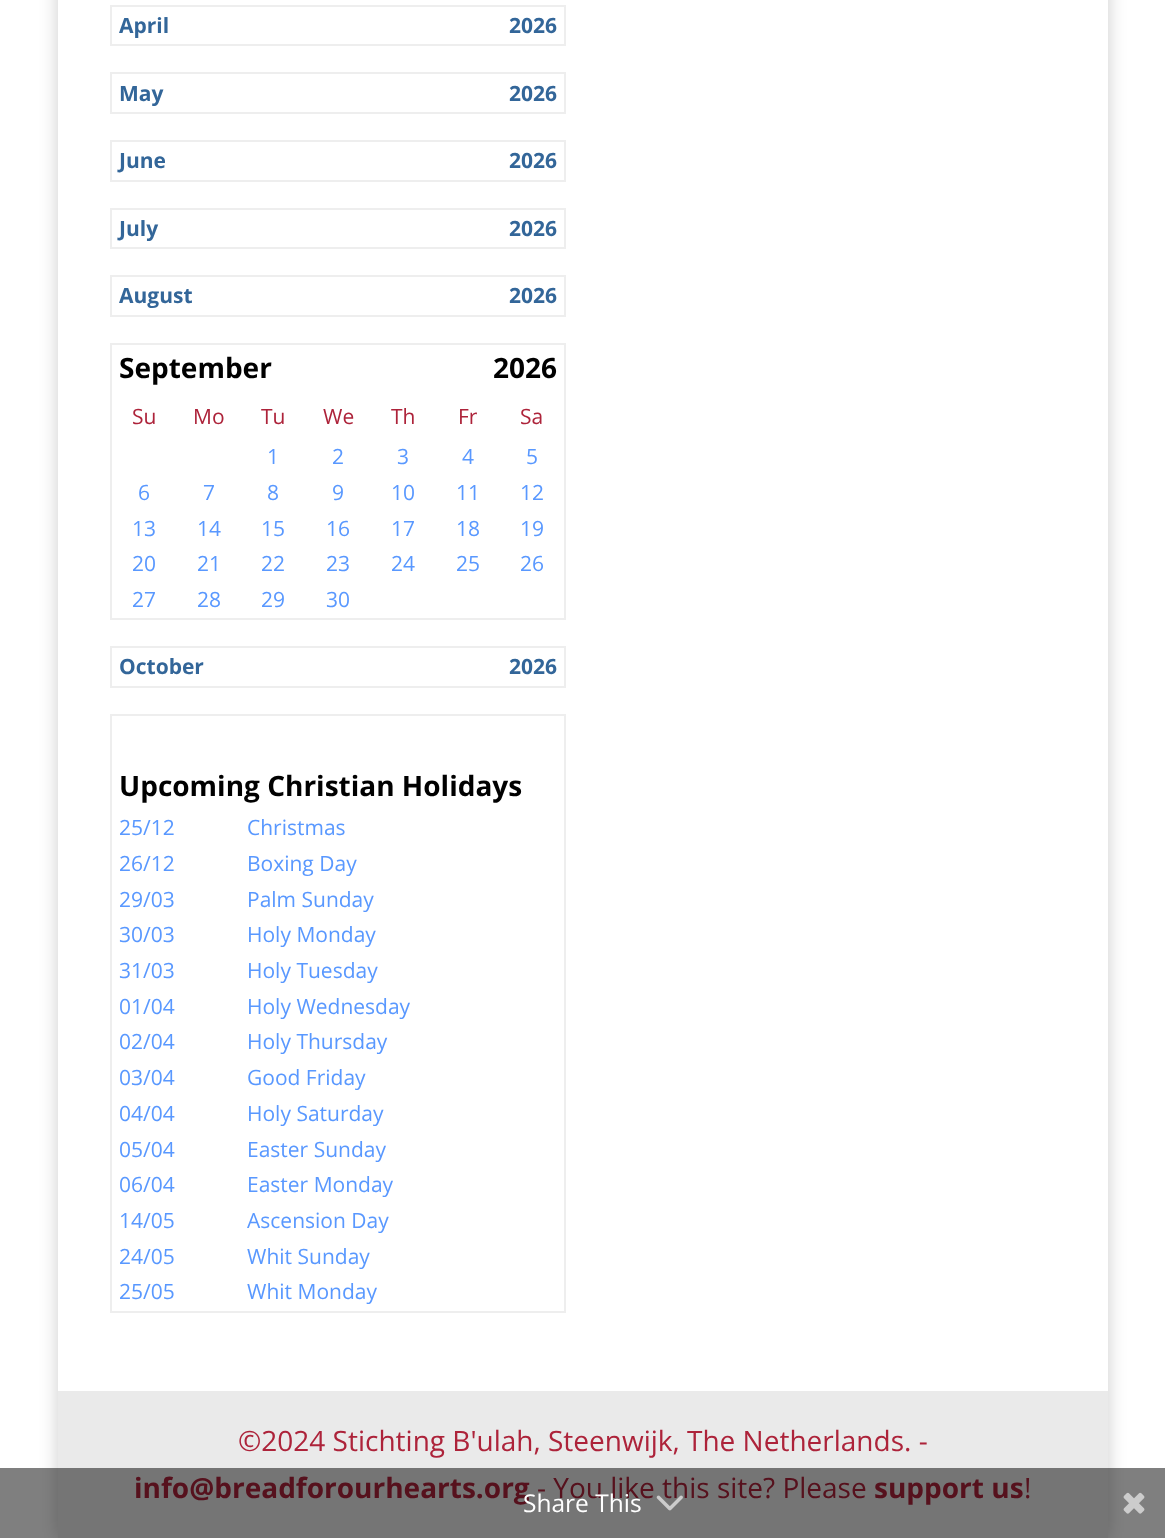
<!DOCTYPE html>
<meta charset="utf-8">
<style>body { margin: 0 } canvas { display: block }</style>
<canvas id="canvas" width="1165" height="1538"></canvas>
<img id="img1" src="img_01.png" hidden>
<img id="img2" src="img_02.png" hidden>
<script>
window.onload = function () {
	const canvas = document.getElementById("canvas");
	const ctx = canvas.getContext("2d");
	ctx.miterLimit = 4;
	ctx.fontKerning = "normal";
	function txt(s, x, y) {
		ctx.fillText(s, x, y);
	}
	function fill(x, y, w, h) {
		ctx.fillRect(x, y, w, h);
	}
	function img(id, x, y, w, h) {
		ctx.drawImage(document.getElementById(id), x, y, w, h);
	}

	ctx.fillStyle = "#FFFFFF";
	fill(0, 0, 1165, 1538);
	ctx.fillStyle = "rgba(0, 0, 0, 0.2)";
	ctx.filter = "blur(9px)";
	ctx.beginPath();
	ctx.rect(58, -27, 1050, 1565);
	ctx.fill();
	ctx.filter = "none";
	ctx.fillStyle = "#FFFFFF";
	fill(58, 0, 1050, 1391);
	ctx.fillStyle = "#EEEEEE";
	fill(110, 5, 455, 2);
	fill(564, 5, 2, 41);
	fill(110, 44, 455, 2);
	fill(110, 5, 2, 41);
	fill(110, 72, 455, 2);
	fill(564, 72, 2, 42);
	fill(110, 112, 455, 2);
	fill(110, 72, 2, 42);
	fill(110, 140, 455, 2);
	fill(564, 140, 2, 42);
	fill(110, 180, 455, 2);
	fill(110, 140, 2, 42);
	fill(110, 208, 455, 2);
	fill(564, 208, 2, 41);
	fill(110, 247, 455, 2);
	fill(110, 208, 2, 41);
	fill(110, 275, 455, 2);
	fill(564, 275, 2, 42);
	fill(110, 315, 455, 2);
	fill(110, 275, 2, 42);
	fill(110, 343, 455, 2);
	fill(564, 343, 2, 277);
	fill(110, 618, 455, 2);
	fill(110, 343, 2, 277);
	fill(110, 646, 455, 2);
	fill(564, 646, 2, 42);
	fill(110, 686, 455, 2);
	fill(110, 646, 2, 42);
	fill(110, 714, 455, 2);
	fill(564, 714, 2, 599);
	fill(110, 1311, 455, 2);
	fill(110, 714, 2, 599);
	ctx.fillStyle = "#EAEAEA";
	fill(58, 1391, 1050, 147);
	ctx.font = "bold 21px Open Sans";
	ctx.fillStyle = "#336699";
	txt("April", 119, 33);
	txt("2026", 509, 33);
	txt("May", 119, 101);
	txt("2026", 509, 101);
	txt("June", 119, 168);
	txt("2026", 509, 168);
	txt("July", 119, 236);
	txt("2026", 509, 236);
	txt("August", 119, 303);
	txt("2026", 509, 303);
	ctx.font = "bold 28px Open Sans";
	ctx.fillStyle = "#000000";
	txt("September", 119, 378);
	txt("2026", 493, 378);
	ctx.font = "21px Open Sans";
	ctx.fillStyle = "#AD233A";
	txt("Su", 132, 424);
	txt("Mo", 193, 424);
	txt("Tu", 261, 424);
	txt("We", 323, 424);
	txt("Th", 391, 424);
	txt("Fr", 458, 424);
	txt("Sa", 520, 424);
	ctx.fillStyle = "#5998FF";
	txt("1", 267, 464);
	txt("2", 332, 464);
	txt("3", 397, 464);
	txt("4", 462, 464);
	txt("5", 526, 464);
	txt("6", 138, 500);
	txt("7", 203, 500);
	txt("8", 267, 500);
	txt("9", 332, 500);
	txt("10", 391, 500);
	txt("11", 456, 500);
	txt("12", 520, 500);
	txt("13", 132, 536);
	txt("14", 197, 536);
	txt("15", 261, 536);
	txt("16", 326, 536);
	txt("17", 391, 536);
	txt("18", 456, 536);
	txt("19", 520, 536);
	txt("20", 132, 571);
	txt("21", 197, 571);
	txt("22", 261, 571);
	txt("23", 326, 571);
	txt("24", 391, 571);
	txt("25", 456, 571);
	txt("26", 520, 571);
	txt("27", 132, 607);
	txt("28", 197, 607);
	txt("29", 261, 607);
	txt("30", 326, 607);
	ctx.font = "bold 21px Open Sans";
	ctx.fillStyle = "#336699";
	txt("October", 119, 674);
	txt("2026", 509, 674);
	ctx.font = "bold 28px Open Sans";
	ctx.fillStyle = "#000000";
	txt("Upcoming Christian Holidays", 119, 796);
	ctx.font = "21px Open Sans";
	ctx.fillStyle = "#5998FF";
	txt("25/12", 119, 835);
	txt("Christmas", 247, 835);
	txt("26/12", 119, 871);
	txt("Boxing Day", 247, 871);
	txt("29/03", 119, 907);
	txt("Palm Sunday", 247, 907);
	txt("30/03", 119, 942);
	txt("Holy Monday", 247, 942);
	txt("31/03", 119, 978);
	txt("Holy Tuesday", 247, 978);
	txt("01/04", 119, 1014);
	txt("Holy Wednesday", 247, 1014);
	txt("02/04", 119, 1049);
	txt("Holy Thursday", 247, 1049);
	txt("03/04", 119, 1085);
	txt("Good Friday", 247, 1085);
	txt("04/04", 119, 1121);
	txt("Holy Saturday", 247, 1121);
	txt("05/04", 119, 1157);
	txt("Easter Sunday", 247, 1157);
	txt("06/04", 119, 1192);
	txt("Easter Monday", 247, 1192);
	txt("14/05", 119, 1228);
	txt("Ascension Day", 247, 1228);
	txt("24/05", 119, 1264);
	txt("Whit Sunday", 247, 1264);
	txt("25/05", 119, 1299);
	txt("Whit Monday", 247, 1299);
	ctx.font = "28px Open Sans";
	ctx.fillStyle = "#AD233A";
	txt("©2024 Stichting B'ulah, Steenwijk, The Netherlands. -", 238, 1451);
	ctx.font = "bold 28px Open Sans";
	txt("info@breadforourhearts.org", 134, 1498);
	ctx.font = "28px Open Sans";
	txt("- You like this site? Please", 537, 1498);
	ctx.font = "bold 28px Open Sans";
	txt("support us", 874, 1498);
	ctx.font = "28px Open Sans";
	txt("!", 1024, 1498);
	ctx.fillStyle = "rgba(0, 0, 0, 0.5)";
	fill(0, 1468, 1165, 70);
	ctx.font = "24.5px Open Sans";
	ctx.fillStyle = "#FFFFFF";
	txt("Share This", 523, 1512);
	img("img1", 656, 1495, 27, 16);
	img("img2", 1123, 1492, 22, 22);
};
</script>
